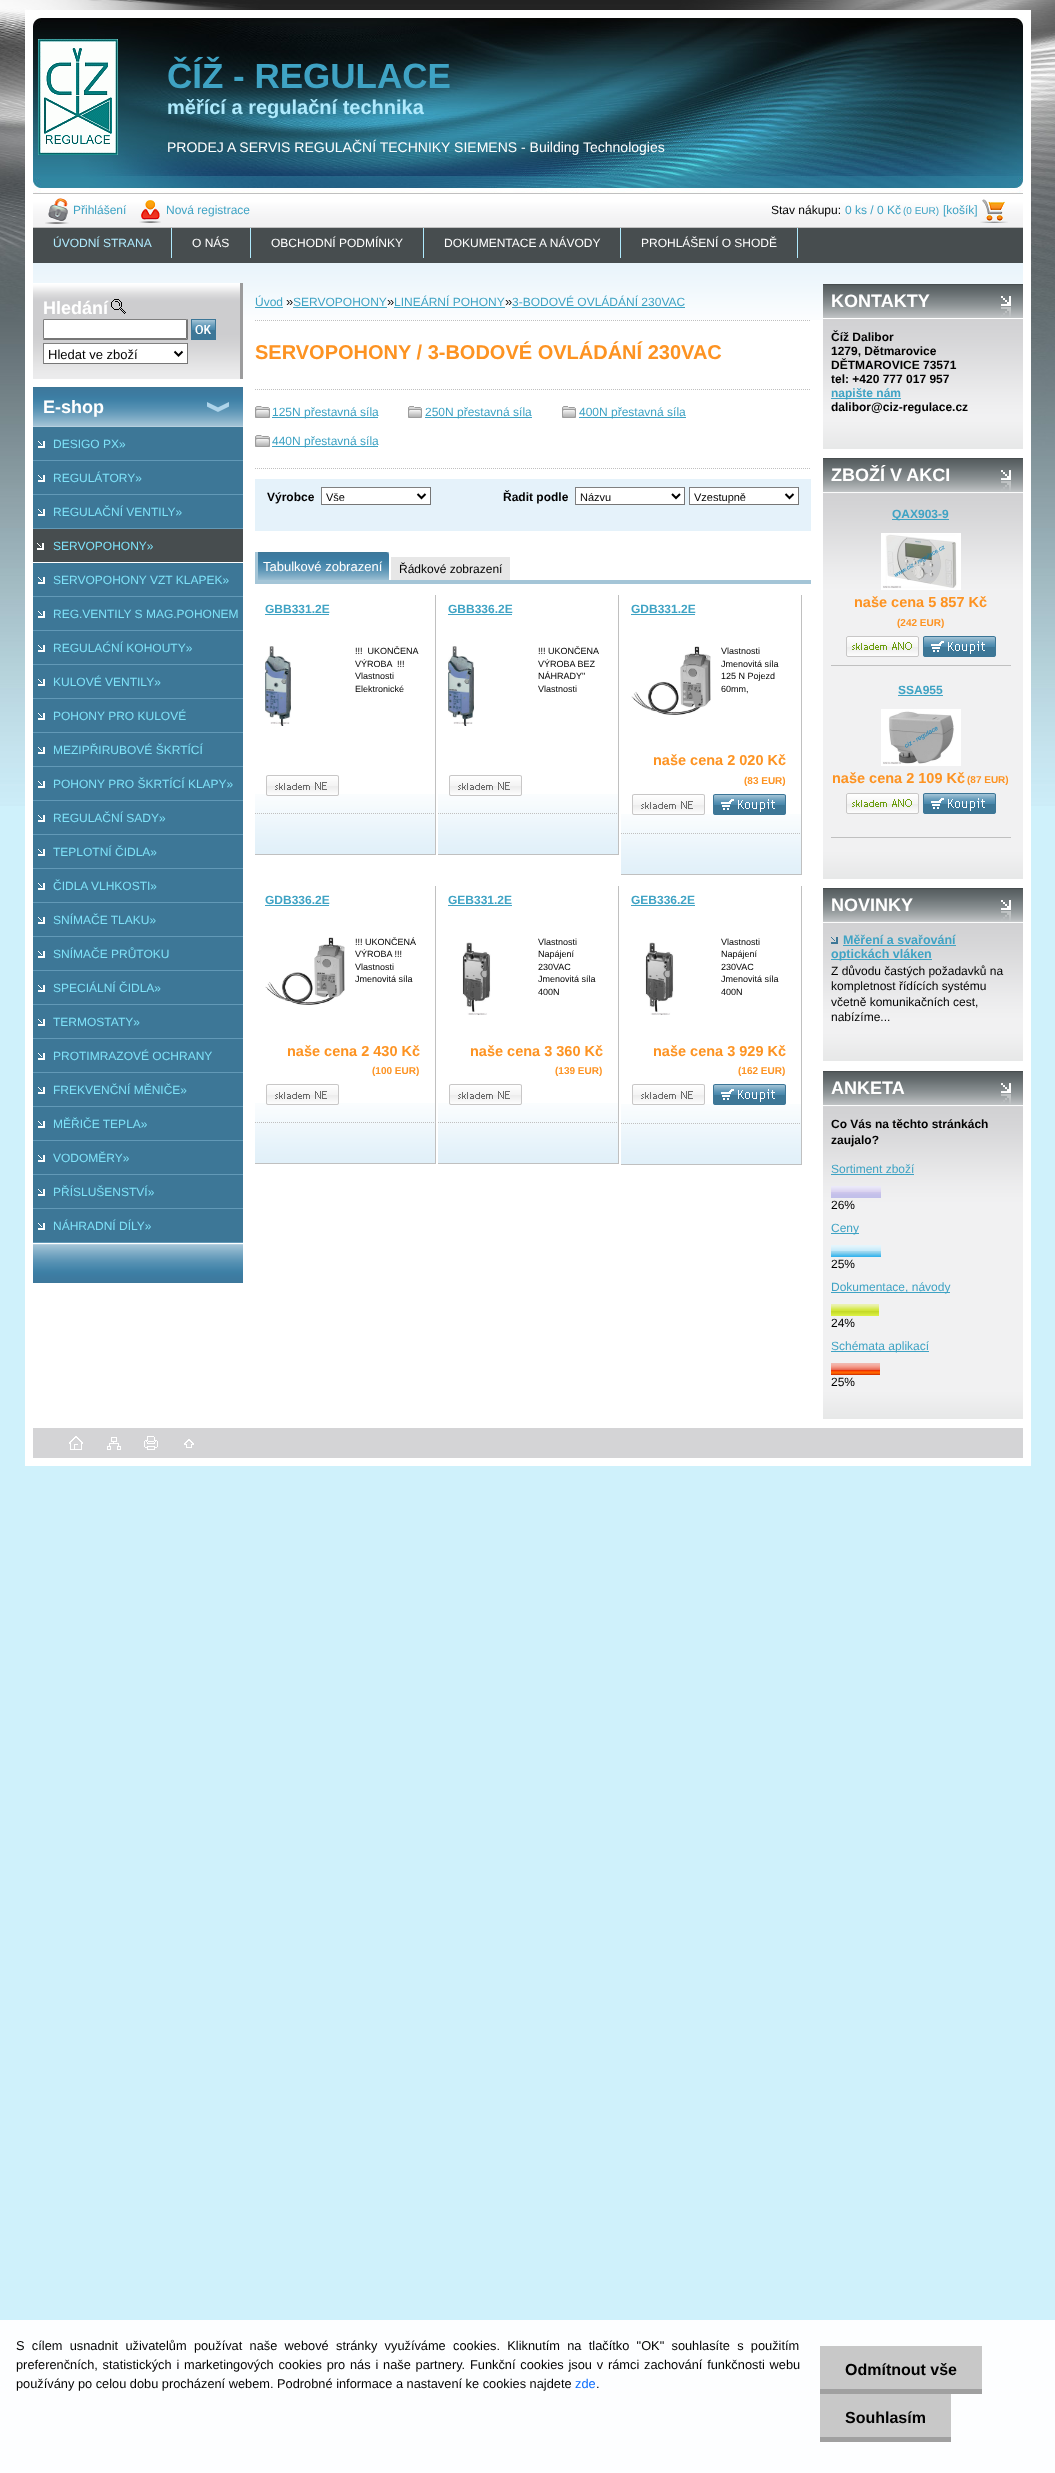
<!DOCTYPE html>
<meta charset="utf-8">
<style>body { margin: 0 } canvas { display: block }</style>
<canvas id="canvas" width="1055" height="2473"></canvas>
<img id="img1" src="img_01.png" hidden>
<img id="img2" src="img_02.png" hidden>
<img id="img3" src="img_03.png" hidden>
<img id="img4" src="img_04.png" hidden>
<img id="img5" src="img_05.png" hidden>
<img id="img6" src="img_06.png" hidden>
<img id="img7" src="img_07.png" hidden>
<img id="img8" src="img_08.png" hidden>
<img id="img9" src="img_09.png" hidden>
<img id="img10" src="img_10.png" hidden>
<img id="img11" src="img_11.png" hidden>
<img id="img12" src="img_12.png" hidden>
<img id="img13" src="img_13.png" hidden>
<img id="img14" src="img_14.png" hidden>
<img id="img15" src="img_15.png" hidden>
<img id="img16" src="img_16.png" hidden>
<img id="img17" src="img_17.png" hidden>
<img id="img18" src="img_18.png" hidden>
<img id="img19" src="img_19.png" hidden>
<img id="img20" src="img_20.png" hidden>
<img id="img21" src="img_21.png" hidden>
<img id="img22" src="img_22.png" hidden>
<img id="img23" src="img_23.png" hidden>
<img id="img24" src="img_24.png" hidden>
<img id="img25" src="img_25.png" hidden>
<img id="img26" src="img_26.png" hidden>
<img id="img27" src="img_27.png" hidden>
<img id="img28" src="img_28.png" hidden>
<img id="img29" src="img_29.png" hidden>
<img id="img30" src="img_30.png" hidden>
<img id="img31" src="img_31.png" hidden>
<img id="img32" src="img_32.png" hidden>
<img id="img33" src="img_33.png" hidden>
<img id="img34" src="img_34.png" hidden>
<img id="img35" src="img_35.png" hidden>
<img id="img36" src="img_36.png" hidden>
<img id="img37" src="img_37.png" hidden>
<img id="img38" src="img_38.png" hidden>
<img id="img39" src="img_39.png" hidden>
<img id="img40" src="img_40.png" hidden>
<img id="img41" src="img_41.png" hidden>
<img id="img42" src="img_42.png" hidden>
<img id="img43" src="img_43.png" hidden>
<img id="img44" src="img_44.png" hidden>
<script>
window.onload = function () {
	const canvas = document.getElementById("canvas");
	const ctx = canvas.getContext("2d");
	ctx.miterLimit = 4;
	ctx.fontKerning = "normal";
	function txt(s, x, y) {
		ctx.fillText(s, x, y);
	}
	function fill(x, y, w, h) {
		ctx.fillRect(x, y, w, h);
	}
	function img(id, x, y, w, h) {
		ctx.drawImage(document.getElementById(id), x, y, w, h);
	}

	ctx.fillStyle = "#CFF1FB";
	fill(0, 0, 1055, 2473);
	img("img1", 0, 0, 1055, 806);
	ctx.fillStyle = "#FFFFFF";
	fill(25, 10, 1006, 1456);
	img("img2", 33, 18, 990, 175);
	img("img3", 38, 39, 80, 116);
	ctx.fillStyle = "#C0C0C0";
	fill(33, 193, 990, 35);
	img("img4", 33, 194, 990, 33);
	img("img5", 45, 198, 24, 26);
	img("img6", 139, 200, 22, 23);
	img("img7", 980, 199, 28, 24);
	ctx.fillStyle = "#474D4F";
	fill(33, 228, 990, 35);
	ctx.fillStyle = "#AFEAFD";
	fill(171, 228, 1, 30);
	fill(250, 228, 1, 30);
	fill(423, 228, 1, 30);
	fill(620, 228, 1, 30);
	fill(797, 228, 1, 30);
	img("img8", 33, 263, 990, 57);
	img("img9", 33, 283, 210, 96);
	img("img10", 111, 299, 15, 15);
	ctx.fillStyle = "#FFFFFF";
	fill(43, 319, 145, 21);
	ctx.fillStyle = "#808080";
	ctx.beginPath();
	ctx.moveTo(43, 319);
	ctx.lineTo(188, 319);
	ctx.lineTo(186, 320);
	ctx.lineTo(44, 320);
	ctx.closePath();
	ctx.fill();
	ctx.fillStyle = "#767676";
	ctx.beginPath();
	ctx.moveTo(188, 319);
	ctx.lineTo(188, 340);
	ctx.lineTo(186, 338);
	ctx.lineTo(186, 320);
	ctx.closePath();
	ctx.fill();
	ctx.beginPath();
	ctx.moveTo(188, 340);
	ctx.lineTo(43, 340);
	ctx.lineTo(44, 338);
	ctx.lineTo(186, 338);
	ctx.closePath();
	ctx.fill();
	ctx.fillStyle = "#808080";
	ctx.beginPath();
	ctx.moveTo(43, 340);
	ctx.lineTo(43, 319);
	ctx.lineTo(44, 320);
	ctx.lineTo(44, 338);
	ctx.closePath();
	ctx.fill();
	img("img11", 191, 319, 25, 21);
	ctx.fillStyle = "#FFFFFF";
	fill(44, 344, 143, 19);
	ctx.fillStyle = "#808080";
	fill(43, 343, 145, 1);
	ctx.fillStyle = "#767676";
	fill(187, 343, 1, 21);
	fill(43, 363, 145, 1);
	ctx.fillStyle = "#808080";
	fill(43, 343, 1, 21);
	ctx.beginPath();
	ctx.moveTo(174.5, 351.5);
	ctx.lineTo(178.5, 355.5);
	ctx.lineTo(182.5, 351.5);
	ctx.strokeStyle = "#000000";
	ctx.lineWidth = 2;
	ctx.stroke();
	img("img12", 33, 387, 210, 40);
	img("img13", 33, 427, 210, 34);
	img("img13", 33, 461, 210, 34);
	img("img13", 33, 495, 210, 34);
	img("img14", 33, 529, 210, 33);
	img("img13", 33, 563, 210, 34);
	img("img13", 33, 597, 210, 34);
	img("img13", 33, 631, 210, 34);
	img("img13", 33, 665, 210, 34);
	img("img13", 33, 699, 210, 34);
	img("img13", 33, 733, 210, 34);
	img("img13", 33, 767, 210, 34);
	img("img13", 33, 801, 210, 34);
	img("img13", 33, 835, 210, 34);
	img("img13", 33, 869, 210, 34);
	img("img13", 33, 903, 210, 34);
	img("img13", 33, 937, 210, 34);
	img("img13", 33, 971, 210, 34);
	img("img13", 33, 1005, 210, 34);
	img("img13", 33, 1039, 210, 34);
	img("img13", 33, 1073, 210, 34);
	img("img13", 33, 1107, 210, 34);
	img("img13", 33, 1141, 210, 34);
	img("img13", 33, 1175, 210, 34);
	img("img13", 33, 1209, 210, 34);
	img("img15", 33, 1244, 210, 39);
	ctx.beginPath();
	ctx.moveTo(255, 320.5);
	ctx.lineTo(811, 320.5);
	ctx.strokeStyle = "#C0C0C0";
	ctx.lineWidth = 1;
	ctx.setLineDash([1, 1]);
	ctx.stroke();
	ctx.fillStyle = "#3FA3C4";
	fill(255, 307, 28, 1);
	fill(293, 307, 94, 1);
	fill(394, 307, 111, 1);
	fill(512, 307, 173, 1);
	ctx.beginPath();
	ctx.moveTo(255, 389.5);
	ctx.lineTo(811, 389.5);
	ctx.stroke();
	ctx.beginPath();
	ctx.moveTo(255, 468.5);
	ctx.lineTo(811, 468.5);
	ctx.stroke();
	img("img16", 255, 406, 15, 12);
	fill(272, 417, 106, 1);
	img("img17", 408, 406, 14, 12);
	fill(425, 417, 107, 1);
	img("img17", 562, 406, 14, 12);
	fill(579, 417, 107, 1);
	img("img16", 255, 435, 15, 12);
	fill(272, 446, 106, 1);
	ctx.fillStyle = "#E5F2FA";
	fill(255, 479, 556, 52);
	ctx.fillStyle = "#FFFFFF";
	fill(322, 488, 108, 16);
	ctx.fillStyle = "#808080";
	fill(321, 487, 110, 1);
	ctx.fillStyle = "#767676";
	fill(430, 487, 1, 18);
	fill(321, 504, 110, 1);
	ctx.fillStyle = "#808080";
	fill(321, 487, 1, 18);
	ctx.beginPath();
	ctx.moveTo(417.5, 494);
	ctx.lineTo(421.5, 498);
	ctx.lineTo(425.5, 494);
	ctx.strokeStyle = "#000000";
	ctx.lineWidth = 2;
	ctx.setLineDash([]);
	ctx.stroke();
	ctx.fillStyle = "#FFFFFF";
	fill(576, 488, 108, 16);
	ctx.fillStyle = "#808080";
	fill(575, 487, 110, 1);
	ctx.fillStyle = "#767676";
	fill(684, 487, 1, 18);
	fill(575, 504, 110, 1);
	ctx.fillStyle = "#808080";
	fill(575, 487, 1, 18);
	ctx.beginPath();
	ctx.moveTo(672, 494);
	ctx.lineTo(676, 498);
	ctx.lineTo(680, 494);
	ctx.stroke();
	ctx.fillStyle = "#FFFFFF";
	fill(690, 488, 108, 16);
	ctx.fillStyle = "#808080";
	fill(689, 487, 110, 1);
	ctx.fillStyle = "#767676";
	fill(798, 487, 1, 18);
	fill(689, 504, 110, 1);
	ctx.fillStyle = "#808080";
	fill(689, 487, 1, 18);
	ctx.beginPath();
	ctx.moveTo(785.5, 494);
	ctx.lineTo(789.5, 498);
	ctx.lineTo(793.5, 494);
	ctx.stroke();
	ctx.fillStyle = "#A4C5D7";
	fill(255, 552, 134, 28);
	img("img18", 258, 552, 131, 28);
	ctx.fillStyle = "#E7E7E7";
	fill(391, 557, 119, 23);
	ctx.fillStyle = "#A4C5D7";
	fill(255, 580, 556, 4);
	img("img19", 255, 794, 180, 60);
	ctx.fillStyle = "#C0C0C0";
	fill(435, 595, 1, 260);
	fill(255, 854, 181, 1);
	ctx.fillStyle = "#3FA3C4";
	fill(265, 614, 64, 1);
	img("img20", 265, 646, 26, 80);
	img("img21", 266, 775, 73, 21);
	ctx.beginPath();
	ctx.moveTo(255, 813.5);
	ctx.lineTo(435, 813.5);
	ctx.strokeStyle = "#C0C0C0";
	ctx.lineWidth = 1;
	ctx.setLineDash([1, 1]);
	ctx.stroke();
	img("img19", 438, 794, 180, 60);
	ctx.fillStyle = "#C0C0C0";
	fill(618, 595, 1, 260);
	fill(438, 854, 181, 1);
	ctx.fillStyle = "#3FA3C4";
	fill(448, 614, 64, 1);
	img("img22", 448, 646, 26, 80);
	img("img21", 449, 775, 73, 21);
	ctx.beginPath();
	ctx.moveTo(438, 813.5);
	ctx.lineTo(618, 813.5);
	ctx.stroke();
	img("img19", 621, 814, 180, 60);
	ctx.fillStyle = "#C0C0C0";
	fill(801, 595, 1, 280);
	fill(621, 874, 181, 1);
	ctx.fillStyle = "#3FA3C4";
	fill(631, 614, 64, 1);
	img("img23", 631, 646, 80, 69);
	img("img21", 632, 794, 73, 21);
	img("img24", 713, 794, 73, 21);
	ctx.beginPath();
	ctx.moveTo(621, 833.5);
	ctx.lineTo(801, 833.5);
	ctx.stroke();
	img("img19", 255, 1103, 180, 60);
	ctx.fillStyle = "#C0C0C0";
	fill(435, 886, 1, 278);
	fill(255, 1163, 181, 1);
	ctx.fillStyle = "#3FA3C4";
	fill(265, 905, 64, 1);
	img("img25", 265, 937, 80, 68);
	img("img21", 266, 1084, 73, 21);
	ctx.beginPath();
	ctx.moveTo(255, 1122.5);
	ctx.lineTo(435, 1122.5);
	ctx.stroke();
	img("img19", 438, 1103, 180, 60);
	ctx.fillStyle = "#C0C0C0";
	fill(618, 886, 1, 278);
	fill(438, 1163, 181, 1);
	ctx.fillStyle = "#3FA3C4";
	fill(448, 905, 64, 1);
	img("img26", 462, 942, 29, 73);
	img("img21", 449, 1084, 73, 21);
	ctx.beginPath();
	ctx.moveTo(438, 1122.5);
	ctx.lineTo(618, 1122.5);
	ctx.stroke();
	img("img19", 621, 1104, 180, 60);
	ctx.fillStyle = "#C0C0C0";
	fill(801, 886, 1, 279);
	fill(621, 1164, 181, 1);
	ctx.fillStyle = "#3FA3C4";
	fill(631, 905, 64, 1);
	img("img27", 645, 942, 29, 73);
	img("img21", 632, 1084, 73, 21);
	img("img24", 713, 1084, 73, 21);
	ctx.beginPath();
	ctx.moveTo(621, 1123.5);
	ctx.lineTo(801, 1123.5);
	ctx.stroke();
	img("img28", 823, 284, 200, 135);
	fill(831, 398, 70, 1);
	img("img29", 823, 419, 200, 30);
	img("img30", 823, 458, 200, 391);
	ctx.fillStyle = "#C0C0C0";
	fill(831, 665, 180, 1);
	ctx.fillStyle = "#3FA3C4";
	fill(892, 519, 57, 1);
	img("img31", 881, 533, 80, 57);
	img("img32", 846, 636, 73, 21);
	img("img24", 923, 636, 73, 21);
	ctx.fillStyle = "#C0C0C0";
	fill(831, 837, 180, 1);
	ctx.fillStyle = "#3FA3C4";
	fill(898, 695, 45, 1);
	img("img33", 881, 709, 80, 57);
	img("img32", 846, 793, 73, 21);
	img("img24", 923, 793, 73, 21);
	img("img29", 823, 849, 200, 30);
	img("img34", 823, 888, 200, 143);
	img("img35", 831, 937, 7, 7);
	fill(843, 945, 113, 1);
	fill(831, 959, 101, 1);
	img("img29", 823, 1031, 200, 30);
	img("img36", 823, 1071, 200, 318);
	fill(831, 1174, 83, 1);
	img("img37", 831, 1186, 50, 12);
	fill(831, 1233, 28, 1);
	img("img38", 831, 1245, 50, 12);
	fill(831, 1292, 119, 1);
	img("img39", 831, 1304, 48, 12);
	fill(831, 1351, 98, 1);
	img("img40", 831, 1363, 49, 12);
	img("img29", 823, 1389, 200, 30);
	ctx.fillStyle = "#D4D4D6";
	fill(33, 1428, 990, 30);
	img("img41", 69, 1436, 14, 14);
	img("img42", 107, 1437, 14, 13);
	img("img43", 144, 1436, 14, 14);
	img("img44", 184, 1439, 10, 9);
	ctx.fillStyle = "#FDFEFF";
	fill(0, 2320, 1055, 153);
	ctx.fillStyle = "#C8C8C8";
	fill(820, 2346, 162, 43);
	ctx.fillStyle = "#A0A0A0";
	fill(820, 2389, 162, 5);
	ctx.fillStyle = "#C8C8C8";
	fill(820, 2394, 131, 43);
	ctx.fillStyle = "#A0A0A0";
	fill(820, 2437, 131, 5);
	ctx.font = "bold 35px Liberation Sans";
	ctx.fillStyle = "#3FA3C4";
	txt("ČÍŽ - REGULACE", 167, 88);
	ctx.font = "bold 20px Liberation Sans";
	ctx.fillStyle = "#AFEAFD";
	txt("měřící a regulační technika", 167, 114);
	ctx.font = "14px Liberation Sans";
	ctx.fillStyle = "#FFFFFF";
	txt("PRODEJ A SERVIS REGULAČNÍ TECHNIKY SIEMENS - Building Technologies", 167, 152);
	ctx.font = "12px Liberation Sans";
	ctx.fillStyle = "#3FA3C4";
	txt("Přihlášení", 73, 214);
	txt("Nová registrace", 166, 214);
	ctx.fillStyle = "#000000";
	txt("Stav nákupu:", 771, 214);
	ctx.fillStyle = "#3FA3C4";
	txt("0 ks / 0 Kč", 845, 214);
	ctx.font = "10px Liberation Sans";
	txt("(0 EUR)", 903, 214);
	ctx.font = "12px Liberation Sans";
	txt("[košík]", 943, 214);
	ctx.fillStyle = "#AFEAFD";
	txt("ÚVODNÍ STRANA", 53, 247);
	ctx.fillStyle = "#FFFFFF";
	txt("O NÁS", 192, 247);
	txt("OBCHODNÍ PODMÍNKY", 271, 247);
	txt("DOKUMENTACE A NÁVODY", 444, 247);
	txt("PROHLÁŠENÍ O SHODĚ", 641, 247);
	ctx.font = "bold 18px Liberation Sans";
	txt("Hledání", 43, 314);
	ctx.font = "13px Liberation Sans";
	ctx.fillStyle = "#000000";
	txt("Hledat ve zboží", 48, 359);
	ctx.font = "bold 18px Liberation Sans";
	ctx.fillStyle = "#FFFFFF";
	txt("E-shop", 43, 413);
	ctx.font = "12px Liberation Sans";
	ctx.fillStyle = "#7EE2F9";
	txt("DESIGO PX»", 53, 448);
	txt("REGULÁTORY»", 53, 482);
	txt("REGULAČNÍ VENTILY»", 53, 516);
	txt("SERVOPOHONY»", 53, 550);
	txt("SERVOPOHONY VZT KLAPEK»", 53, 584);
	txt("REG.VENTILY S MAG.POHONEM", 53, 618);
	txt("REGULAĆNÍ KOHOUTY»", 53, 652);
	txt("KULOVÉ VENTILY»", 53, 686);
	txt("POHONY PRO KULOVÉ", 53, 720);
	txt("MEZIPŘIRUBOVÉ ŠKRTÍCÍ", 53, 754);
	txt("POHONY PRO ŠKRTÍCÍ KLAPY»", 53, 788);
	txt("REGULAČNÍ SADY»", 53, 822);
	txt("TEPLOTNÍ ČIDLA»", 53, 856);
	txt("ČIDLA VLHKOSTI»", 53, 890);
	txt("SNÍMAČE TLAKU»", 53, 924);
	txt("SNÍMAČE PRŮTOKU", 53, 958);
	txt("SPECIÁLNÍ ČIDLA»", 53, 992);
	txt("TERMOSTATY»", 53, 1026);
	txt("PROTIMRAZOVÉ OCHRANY", 53, 1060);
	txt("FREKVENČNÍ MĚNIČE»", 53, 1094);
	txt("MĚŘIČE TEPLA»", 53, 1128);
	txt("VODOMĚRY»", 53, 1162);
	txt("PŘÍSLUŠENSTVÍ»", 53, 1196);
	txt("NÁHRADNÍ DÍLY»", 53, 1230);
	ctx.fillStyle = "#3FA3C4";
	txt("Úvod", 255, 306);
	ctx.font = "13px Liberation Sans";
	ctx.fillStyle = "#000000";
	txt("»", 286, 306);
	ctx.font = "12px Liberation Sans";
	ctx.fillStyle = "#3FA3C4";
	txt("SERVOPOHONY", 293, 306);
	ctx.font = "13px Liberation Sans";
	ctx.fillStyle = "#000000";
	txt("»", 387, 306);
	ctx.font = "12px Liberation Sans";
	ctx.fillStyle = "#3FA3C4";
	txt("LINEÁRNÍ POHONY", 394, 306);
	ctx.font = "13px Liberation Sans";
	ctx.fillStyle = "#000000";
	txt("»", 505, 306);
	ctx.font = "12px Liberation Sans";
	ctx.fillStyle = "#3FA3C4";
	txt("3-BODOVÉ OVLÁDÁNÍ 230VAC", 512, 306);
	ctx.font = "bold 20px Liberation Sans";
	ctx.fillStyle = "#FD9322";
	txt("SERVOPOHONY / 3-BODOVÉ OVLÁDÁNÍ 230VAC", 255, 359);
	ctx.font = "12px Liberation Sans";
	ctx.fillStyle = "#3FA3C4";
	txt("125N přestavná síla", 272, 416);
	txt("250N přestavná síla", 425, 416);
	txt("400N přestavná síla", 579, 416);
	txt("440N přestavná síla", 272, 445);
	ctx.font = "bold 12px Liberation Sans";
	ctx.fillStyle = "#000000";
	txt("Výrobce", 267, 501);
	ctx.font = "11px Liberation Sans";
	txt("Vše", 326, 501);
	ctx.font = "bold 12px Liberation Sans";
	txt("Řadit podle", 503, 501);
	ctx.font = "11px Liberation Sans";
	txt("Názvu", 580, 501);
	txt("Vzestupně", 694, 501);
	ctx.font = "13px Liberation Sans";
	ctx.fillStyle = "#FFFFFF";
	txt("Tabulkové zobrazení", 263, 571);
	ctx.font = "12px Liberation Sans";
	ctx.fillStyle = "#000000";
	txt("Řádkové zobrazení", 399, 573);
	ctx.font = "bold 12px Liberation Sans";
	ctx.fillStyle = "#3FA3C4";
	txt("GBB331.2E", 265, 613);
	ctx.font = "9px Liberation Sans";
	ctx.fillStyle = "#000000";
	txt("!!!  UKONČENA", 355, 654);
	txt("VÝROBA  !!!", 355, 667);
	txt("Vlastnosti", 355, 679);
	txt("Elektronické", 355, 692);
	ctx.font = "bold 12px Liberation Sans";
	ctx.fillStyle = "#3FA3C4";
	txt("GBB336.2E", 448, 613);
	ctx.font = "9px Liberation Sans";
	ctx.fillStyle = "#000000";
	txt("!!! UKONČENA", 538, 654);
	txt("VÝROBA BEZ", 538, 667);
	txt("NÁHRADY\"", 538, 679);
	txt("Vlastnosti", 538, 692);
	ctx.font = "bold 12px Liberation Sans";
	ctx.fillStyle = "#3FA3C4";
	txt("GDB331.2E", 631, 613);
	ctx.font = "9px Liberation Sans";
	ctx.fillStyle = "#000000";
	txt("Vlastnosti", 721, 654);
	txt("Jmenovitá síla", 721, 667);
	txt("125 N Pojezd", 721, 679);
	txt("60mm,", 721, 692);
	ctx.font = "bold 14.5px Liberation Sans";
	ctx.fillStyle = "#FD9322";
	txt("naše cena 2 020 Kč", 653, 765);
	ctx.font = "bold 10px Liberation Sans";
	txt("(83 EUR)", 744, 784);
	ctx.font = "bold 12px Liberation Sans";
	ctx.fillStyle = "#3FA3C4";
	txt("GDB336.2E", 265, 904);
	ctx.font = "9px Liberation Sans";
	ctx.fillStyle = "#000000";
	txt("!!! UKONČENÁ", 355, 945);
	txt("VÝROBA !!!", 355, 957);
	txt("Vlastnosti", 355, 970);
	txt("Jmenovitá síla", 355, 982);
	ctx.font = "bold 14.5px Liberation Sans";
	ctx.fillStyle = "#FD9322";
	txt("naše cena 2 430 Kč", 287, 1056);
	ctx.font = "bold 10px Liberation Sans";
	txt("(100 EUR)", 372, 1074);
	ctx.font = "bold 12px Liberation Sans";
	ctx.fillStyle = "#3FA3C4";
	txt("GEB331.2E", 448, 904);
	ctx.font = "9px Liberation Sans";
	ctx.fillStyle = "#000000";
	txt("Vlastnosti", 538, 945);
	txt("Napájení", 538, 957);
	txt("230VAC", 538, 970);
	txt("Jmenovitá síla", 538, 982);
	txt("400N", 538, 995);
	ctx.font = "bold 14.5px Liberation Sans";
	ctx.fillStyle = "#FD9322";
	txt("naše cena 3 360 Kč", 470, 1056);
	ctx.font = "bold 10px Liberation Sans";
	txt("(139 EUR)", 555, 1074);
	ctx.font = "bold 12px Liberation Sans";
	ctx.fillStyle = "#3FA3C4";
	txt("GEB336.2E", 631, 904);
	ctx.font = "9px Liberation Sans";
	ctx.fillStyle = "#000000";
	txt("Vlastnosti", 721, 945);
	txt("Napájení", 721, 957);
	txt("230VAC", 721, 970);
	txt("Jmenovitá síla", 721, 982);
	txt("400N", 721, 995);
	ctx.font = "bold 14.5px Liberation Sans";
	ctx.fillStyle = "#FD9322";
	txt("naše cena 3 929 Kč", 653, 1056);
	ctx.font = "bold 10px Liberation Sans";
	txt("(162 EUR)", 738, 1074);
	ctx.font = "bold 18px Liberation Sans";
	ctx.fillStyle = "#FFFFFF";
	txt("KONTAKTY", 831, 307);
	ctx.font = "bold 12px Liberation Sans";
	ctx.fillStyle = "#000000";
	txt("Číž Dalibor", 831, 341);
	txt("1279, Dětmarovice", 831, 355);
	txt("DĚTMAROVICE 73571", 831, 369);
	txt("tel: +420 777 017 957", 831, 383);
	ctx.fillStyle = "#3FA3C4";
	txt("napište nám", 831, 397);
	ctx.fillStyle = "#000000";
	txt("dalibor@ciz-regulace.cz", 831, 411);
	ctx.font = "bold 18px Liberation Sans";
	ctx.fillStyle = "#FFFFFF";
	txt("ZBOŽÍ V AKCI", 831, 481);
	ctx.font = "bold 12px Liberation Sans";
	ctx.fillStyle = "#3FA3C4";
	txt("QAX903-9", 892, 518);
	ctx.font = "bold 14.5px Liberation Sans";
	ctx.fillStyle = "#FD9322";
	txt("naše cena 5 857 Kč", 854, 607);
	ctx.font = "bold 10px Liberation Sans";
	txt("(242 EUR)", 897, 626);
	ctx.font = "bold 12px Liberation Sans";
	ctx.fillStyle = "#3FA3C4";
	txt("SSA955", 898, 694);
	ctx.font = "bold 14.5px Liberation Sans";
	ctx.fillStyle = "#FD9322";
	txt("naše cena 2 109 Kč", 832, 783);
	ctx.font = "bold 10px Liberation Sans";
	txt("(87 EUR)", 967, 783);
	ctx.font = "bold 18px Liberation Sans";
	ctx.fillStyle = "#FFFFFF";
	txt("NOVINKY", 831, 911);
	ctx.font = "bold 12.5px Liberation Sans";
	ctx.fillStyle = "#3FA3C4";
	txt("Měření a svařování", 843, 944);
	txt("optickách vláken", 831, 958);
	ctx.font = "12px Liberation Sans";
	ctx.fillStyle = "#000000";
	txt("Z důvodu častých požadavků na", 831, 975);
	txt("kompletnost řídících systému", 831, 990);
	txt("včetně komunikačních cest,", 831, 1006);
	txt("nabízíme...", 831, 1021);
	ctx.font = "bold 18px Liberation Sans";
	ctx.fillStyle = "#FFFFFF";
	txt("ANKETA", 831, 1094);
	ctx.font = "bold 12px Liberation Sans";
	ctx.fillStyle = "#000000";
	txt("Co Vás na těchto stránkách", 831, 1128);
	txt("zaujalo?", 831, 1144);
	ctx.font = "12px Liberation Sans";
	ctx.fillStyle = "#3FA3C4";
	txt("Sortiment zboží", 831, 1173);
	ctx.fillStyle = "#000000";
	txt("26%", 831, 1209);
	ctx.fillStyle = "#3FA3C4";
	txt("Ceny", 831, 1232);
	ctx.fillStyle = "#000000";
	txt("25%", 831, 1268);
	ctx.fillStyle = "#3FA3C4";
	txt("Dokumentace, návody", 831, 1291);
	ctx.fillStyle = "#000000";
	txt("24%", 831, 1327);
	ctx.fillStyle = "#3FA3C4";
	txt("Schémata aplikací", 831, 1350);
	ctx.fillStyle = "#000000";
	txt("25%", 831, 1386);
	ctx.wordSpacing = "3.75px";
	ctx.font = "12.8px Liberation Sans";
	txt("S cílem usnadnit uživatelům používat naše webové stránky využíváme cookies. Kliknutím na tlačítko \"OK\" souhlasíte s použitím", 16, 2350);
	ctx.wordSpacing = "1.25px";
	txt("preferenčních, statistických i marketingových cookies pro nás i naše partnery. Funkční cookies jsou v rámci zachování funkčnosti webu", 16, 2369);
	ctx.wordSpacing = "0px";
	txt("používány po celou dobu procházení webem. Podrobné informace a nastavení ke cookies najdete", 16, 2388);
	ctx.fillStyle = "#0D6EFD";
	txt("zde", 575, 2388);
	ctx.fillStyle = "#000000";
	txt(".", 596, 2388);
	ctx.font = "bold 16px Liberation Sans";
	txt("Odmítnout vše", 845, 2375);
	txt("Souhlasím", 845, 2423);
};
</script>
